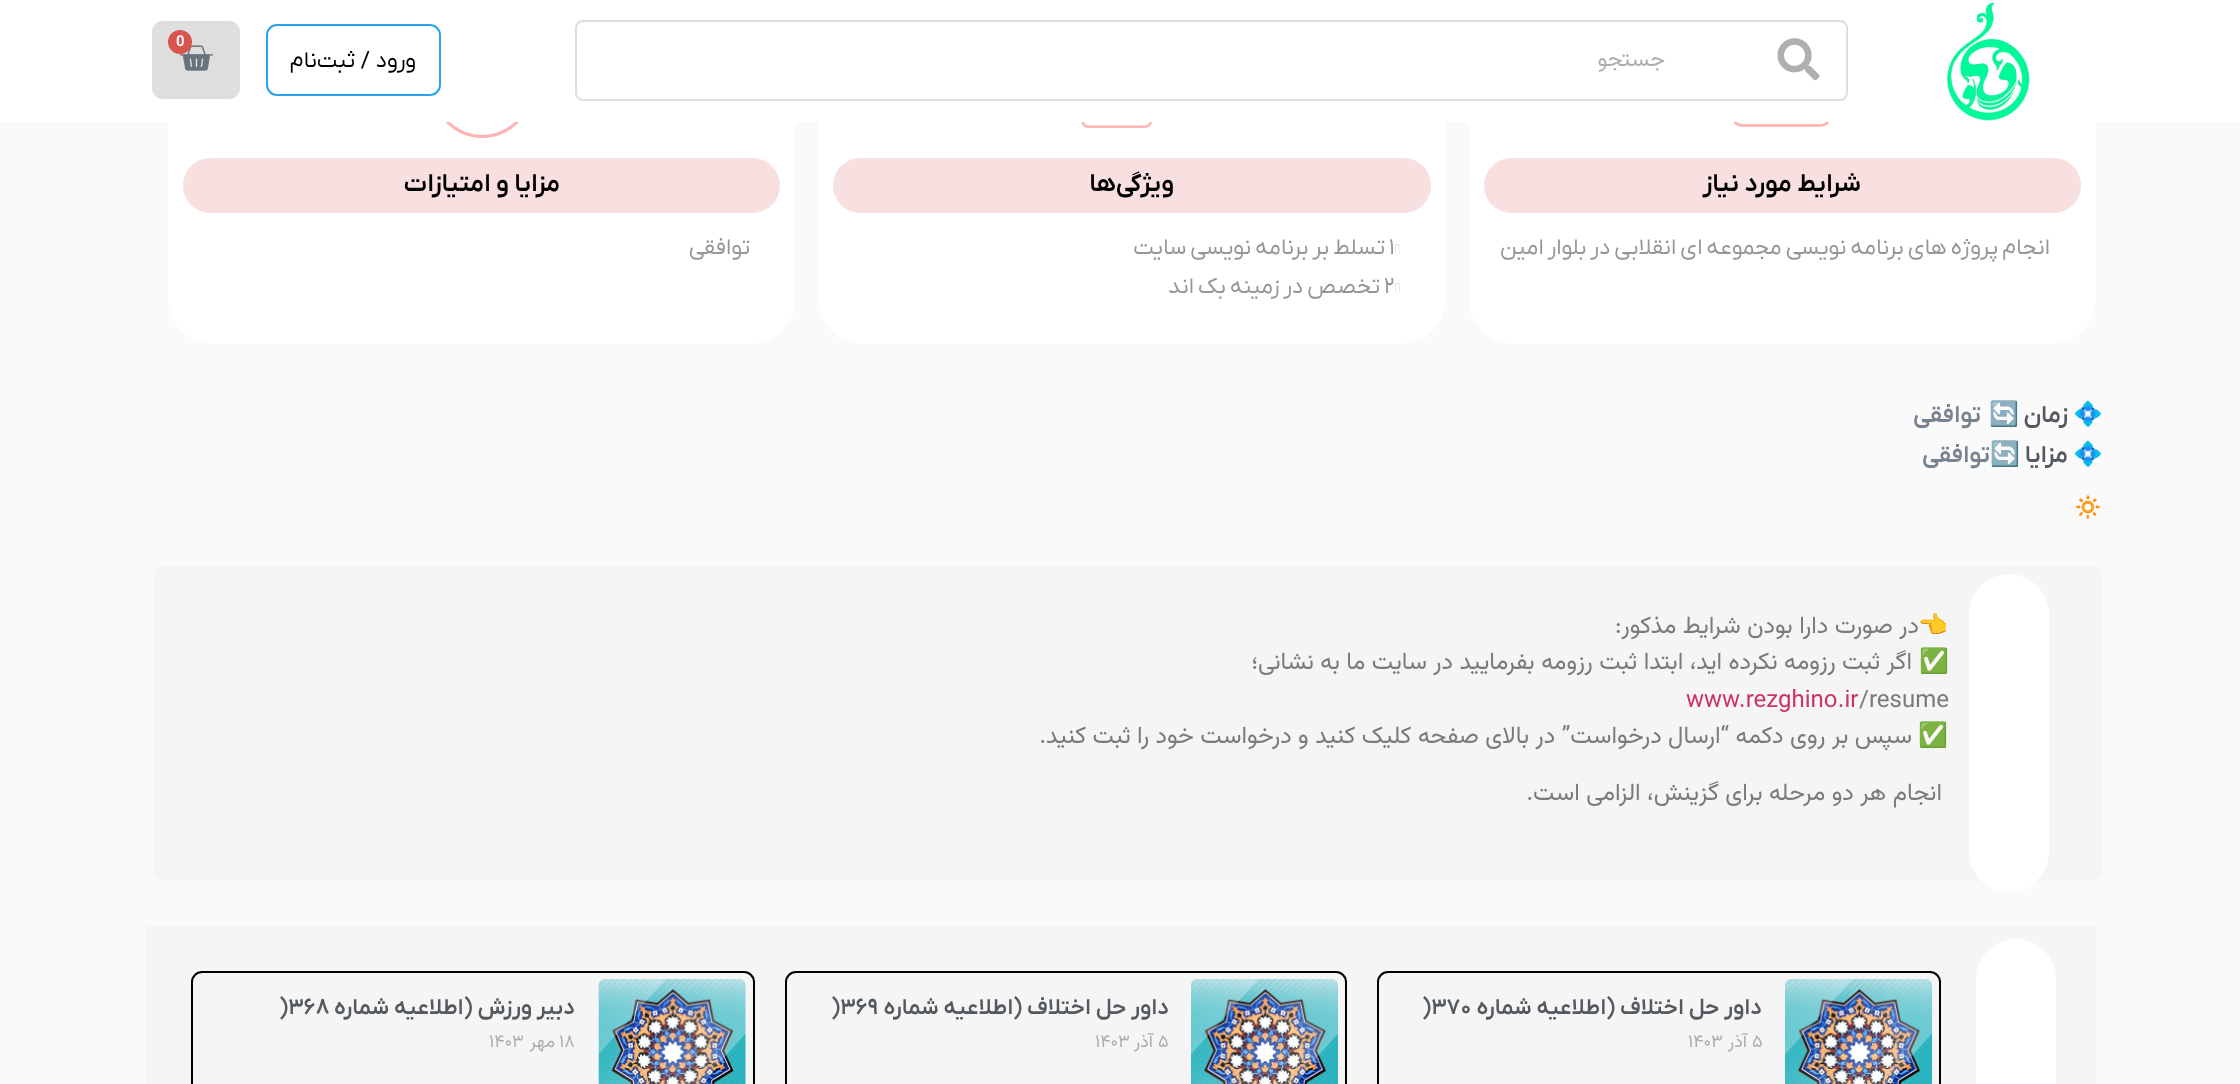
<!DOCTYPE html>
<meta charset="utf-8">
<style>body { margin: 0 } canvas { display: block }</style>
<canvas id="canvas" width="2240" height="1084"></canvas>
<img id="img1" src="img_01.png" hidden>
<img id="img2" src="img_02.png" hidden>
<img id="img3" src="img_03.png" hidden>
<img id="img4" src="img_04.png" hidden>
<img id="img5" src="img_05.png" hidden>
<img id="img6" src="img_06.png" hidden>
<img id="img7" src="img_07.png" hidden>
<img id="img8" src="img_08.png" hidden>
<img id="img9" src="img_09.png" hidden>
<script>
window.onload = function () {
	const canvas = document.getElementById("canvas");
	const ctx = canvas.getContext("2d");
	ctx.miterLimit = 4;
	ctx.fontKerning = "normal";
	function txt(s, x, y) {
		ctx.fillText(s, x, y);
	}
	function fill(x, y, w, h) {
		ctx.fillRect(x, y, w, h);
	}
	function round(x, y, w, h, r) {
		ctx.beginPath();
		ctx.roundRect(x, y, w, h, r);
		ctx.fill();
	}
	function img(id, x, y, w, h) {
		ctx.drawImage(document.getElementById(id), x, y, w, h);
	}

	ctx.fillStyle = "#FAFAFA";
	fill(0, 0, 2240, 1084);
	ctx.fillStyle = "#FFFFFF";
	round(1469, 8, 627, 336, 45);
	round(818, 8, 628, 336, 45);
	round(168, 8, 627, 336, 45);
	fill(0, 0, 2240, 122);
	img("img1", 1946, 2, 84, 119);
	ctx.beginPath();
	ctx.roundRect(576, 21, 1271, 79, 7);
	ctx.strokeStyle = "#DEDEDE";
	ctx.lineWidth = 2;
	ctx.stroke();
	img("img2", 1777, 38, 43, 43);
	ctx.fillStyle = "#DEDEDE";
	round(152, 21, 88, 78, 11);
	img("img3", 180, 45, 33, 26);
	ctx.fillStyle = "#D9534F";
	ctx.beginPath();
	ctx.arc(180, 42, 12, 0, Math.PI * 2);
	ctx.fill();
	ctx.beginPath();
	ctx.roundRect(267, 25, 173, 70, 10);
	ctx.strokeStyle = "#28A3F0";
	ctx.stroke();
	img("img4", 1733, 122, 97, 5);
	ctx.fillStyle = "#F8E0E0";
	round(1484, 158, 597, 55, 27.5);
	img("img5", 1082, 122, 70, 6);
	round(833, 158, 598, 55, 27.5);
	img("img6", 445, 122, 74, 16);
	round(183, 158, 597, 55, 27.5);
	ctx.fillStyle = "#F5F5F5";
	round(153, 566, 1950, 315, 11);
	ctx.fillStyle = "#FFFFFF";
	ctx.beginPath();
	ctx.moveTo(1969, 852);
	ctx.lineTo(1969, 615);
	ctx.bezierCurveTo(1969, 592, 1987, 574, 2009, 574);
	ctx.bezierCurveTo(2031, 574, 2049, 592, 2049, 615);
	ctx.lineTo(2049, 852);
	ctx.bezierCurveTo(2049, 874, 2031, 892, 2009, 892);
	ctx.bezierCurveTo(1987, 892, 1969, 874, 1969, 852);
	ctx.closePath();
	ctx.fill();
	ctx.fillStyle = "#F5F5F5";
	fill(146, 926, 1950, 158);
	ctx.fillStyle = "#FFFFFF";
	ctx.beginPath();
	ctx.moveTo(1976, 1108);
	ctx.lineTo(1976, 979);
	ctx.bezierCurveTo(1976, 957, 1994, 939, 2016, 939);
	ctx.bezierCurveTo(2038, 939, 2056, 957, 2056, 979);
	ctx.lineTo(2056, 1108);
	ctx.bezierCurveTo(2056, 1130, 2038, 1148, 2016, 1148);
	ctx.bezierCurveTo(1994, 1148, 1976, 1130, 1976, 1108);
	ctx.closePath();
	ctx.fill();
	ctx.beginPath();
	ctx.roundRect(1378, 972, 562, 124, 10);
	ctx.strokeStyle = "#000000";
	ctx.stroke();
	img("img7", 1785, 979, 147, 105);
	ctx.beginPath();
	ctx.roundRect(786, 972, 560, 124, 10);
	ctx.stroke();
	img("img8", 1191, 979, 147, 105);
	ctx.beginPath();
	ctx.roundRect(192, 972, 562, 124, 10);
	ctx.stroke();
	img("img9", 598, 979, 148, 105);
	ctx.direction = "rtl";
	ctx.font = "22.5px Vazirmatn";
	ctx.fillStyle = "#ADADAD";
	txt("جستجو", 1665, 66);
	ctx.direction = "ltr";
	ctx.font = "bold 15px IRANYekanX";
	ctx.fillStyle = "#FFFFFF";
	txt("0", 176, 46);
	ctx.direction = "rtl";
	ctx.font = "22.5px IRANYekanX";
	ctx.fillStyle = "#000000";
	txt("ورود / ثبت‌نام", 416, 67);
	ctx.font = "600 25.5px IRANYekanX";
	txt("شرایط مورد نیاز", 1861, 191);
	ctx.wordSpacing = "-1.5px";
	ctx.font = "22.5px IRANYekanX";
	ctx.fillStyle = "#969696";
	txt("انجام پروژه های برنامه نویسی مجموعه ای انقلابی در بلوار امین", 2050, 254);
	ctx.wordSpacing = "0px";
	ctx.font = "600 25.5px IRANYekanX";
	ctx.fillStyle = "#000000";
	txt("ویژگی‌ها", 1174, 191);
	ctx.wordSpacing = "-1.5px";
	ctx.font = "22.5px IRANYekanX";
	ctx.fillStyle = "#969696";
	txt("تسلط بر برنامه نویسی سایت", 1385, 254);
	ctx.wordSpacing = "0px";
	ctx.direction = "ltr";
	txt("۱⃣", 1389, 254);
	ctx.wordSpacing = "-1.5px";
	ctx.direction = "rtl";
	txt("تخصص در زمینه بک اند", 1380, 293);
	ctx.wordSpacing = "0px";
	ctx.direction = "ltr";
	txt("۲⃣", 1384, 293);
	ctx.direction = "rtl";
	ctx.font = "600 25.5px IRANYekanX";
	ctx.fillStyle = "#000000";
	txt("مزایا و امتیازات", 560, 191);
	ctx.font = "22.5px IRANYekanX";
	ctx.fillStyle = "#969696";
	txt("توافقی", 750, 254);
	ctx.font = "bold 24px Noto Color Emoji";
	ctx.fillStyle = "#54595F";
	txt("💠", 2103, 422);
	ctx.font = "600 24px IRANYekanX";
	txt("زمان", 2068, 422);
	ctx.font = "bold 24px Noto Color Emoji";
	txt("🔄", 2019, 422);
	ctx.font = "600 24px IRANYekanX";
	ctx.fillStyle = "#77838F";
	txt("توافقی", 1981, 422);
	ctx.font = "bold 24px Noto Color Emoji";
	ctx.fillStyle = "#54595F";
	txt("💠", 2103, 462);
	ctx.font = "600 24px IRANYekanX";
	txt("مزایا", 2068, 462);
	ctx.font = "bold 24px Noto Color Emoji";
	txt("🔄", 2020, 462);
	ctx.font = "600 24px IRANYekanX";
	ctx.fillStyle = "#77838F";
	txt("توافقی", 1990, 462);
	ctx.direction = "ltr";
	ctx.font = "bold 24px Noto Color Emoji";
	ctx.fillStyle = "#54595F";
	txt("🔅", 2073, 515);
	ctx.direction = "rtl";
	ctx.font = "24px IRANYekanX";
	ctx.fillStyle = "#7A7A7A";
	ctx.save();
	ctx.translate(2271, 862);
	ctx.rotate(-90 * Math.PI / 180);
	ctx.fillText("راهنـــــــــــــــــمـــــــــــــــــــــــــا", 0, 0);
	ctx.restore();
	ctx.font = "24px Noto Color Emoji";
	txt("👈", 1948, 633);
	ctx.font = "24px Vazirmatn";
	txt("در صورت دارا بودن شرایط مذکور:", 1919, 633);
	ctx.font = "24px Noto Color Emoji";
	txt("✅", 1949, 669);
	ctx.font = "24px Vazirmatn";
	txt("اگر ثبت رزومه نکرده اید، ابتدا ثبت رزومه بفرمایید در سایت ما به نشانی؛", 1912, 669);
	ctx.direction = "ltr";
	ctx.font = "24px IRANYekanX";
	ctx.fillStyle = "#CC3366";
	txt("www.rezghino.ir", 1686, 707);
	ctx.font = "24px Vazirmatn";
	ctx.fillStyle = "#7A7A7A";
	txt("/resume", 1859, 707);
	ctx.direction = "rtl";
	ctx.font = "24px Noto Color Emoji";
	txt("✅", 1948, 743);
	ctx.font = "24px Vazirmatn";
	txt("سپس بر روی دکمه “ارسال درخواست” در بالای صفحه کلیک کنید و درخواست خود را ثبت کنید.", 1912, 743);
	txt("انجام هر دو مرحله برای گزینش، الزامی است.", 1942, 800);
	ctx.font = "600 22.5px IRANYekanX";
	ctx.fillStyle = "#54595F";
	txt("داور حل اختلاف (اطلاعیه شماره", 1762, 1014);
	ctx.direction = "ltr";
	txt(")۳۷۰", 1422, 1014);
	ctx.font = "18px Vazirmatn";
	ctx.fillStyle = "#ADADAD";
	txt("۵", 1752, 1047);
	ctx.direction = "rtl";
	txt("آذر", 1747, 1047);
	ctx.direction = "ltr";
	txt("۱۴۰۳", 1688, 1047);
	ctx.direction = "rtl";
	ctx.font = "600 22.5px IRANYekanX";
	ctx.fillStyle = "#54595F";
	txt("داور حل اختلاف (اطلاعیه شماره", 1169, 1014);
	ctx.direction = "ltr";
	txt(")۳۶۹", 831, 1014);
	ctx.font = "18px Vazirmatn";
	ctx.fillStyle = "#ADADAD";
	txt("۵", 1158, 1047);
	ctx.direction = "rtl";
	txt("آذر", 1153, 1047);
	ctx.direction = "ltr";
	txt("۱۴۰۳", 1095, 1047);
	ctx.direction = "rtl";
	ctx.font = "600 22.5px IRANYekanX";
	ctx.fillStyle = "#54595F";
	txt("دبیر ورزش (اطلاعیه شماره", 575, 1014);
	ctx.direction = "ltr";
	txt(")۳۶۸", 279, 1014);
	ctx.font = "18px Vazirmatn";
	ctx.fillStyle = "#ADADAD";
	txt("۱۸", 559, 1047);
	ctx.direction = "rtl";
	txt("مهر", 555, 1047);
	ctx.direction = "ltr";
	txt("۱۴۰۳", 489, 1047);
};
</script>
